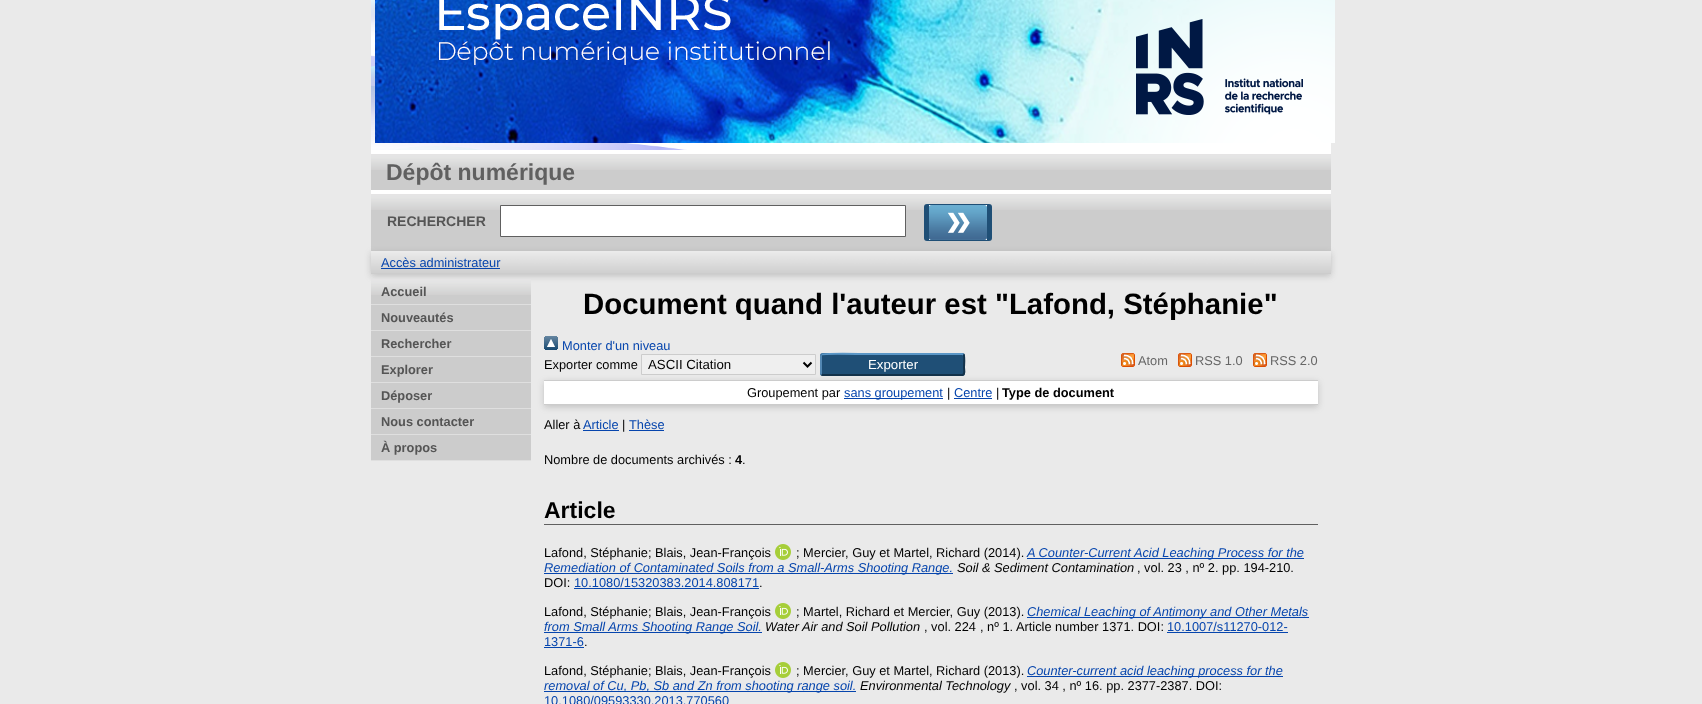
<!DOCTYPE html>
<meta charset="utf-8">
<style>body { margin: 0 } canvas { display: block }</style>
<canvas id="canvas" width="1702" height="704"></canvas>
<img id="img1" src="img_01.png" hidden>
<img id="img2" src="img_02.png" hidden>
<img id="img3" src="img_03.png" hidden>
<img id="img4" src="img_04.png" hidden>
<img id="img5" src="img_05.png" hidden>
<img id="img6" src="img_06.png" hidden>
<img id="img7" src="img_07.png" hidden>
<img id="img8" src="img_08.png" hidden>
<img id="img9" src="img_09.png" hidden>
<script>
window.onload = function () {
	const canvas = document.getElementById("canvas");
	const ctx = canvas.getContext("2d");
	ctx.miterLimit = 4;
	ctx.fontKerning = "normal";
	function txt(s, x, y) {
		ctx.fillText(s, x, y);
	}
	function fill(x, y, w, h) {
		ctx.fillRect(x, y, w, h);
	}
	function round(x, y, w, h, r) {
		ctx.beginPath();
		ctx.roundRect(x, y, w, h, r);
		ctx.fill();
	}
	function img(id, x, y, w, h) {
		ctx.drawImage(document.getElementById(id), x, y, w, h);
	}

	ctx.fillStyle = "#EAEAEA";
	fill(0, 0, 1702, 704);
	ctx.fillStyle = "#FFFFFF";
	fill(371, 0, 960, 154);
	img("img1", 371, 0, 316, 150);
	img("img2", 375, 0, 960, 143);
	ctx.fillStyle = "#CCCCCC";
	fill(371, 170, 960, 20);
	img("img3", 371, 154, 960, 16);
	fill(371, 210, 960, 41);
	img("img3", 371, 194, 960, 16);
	ctx.fillStyle = "#FFFFFF";
	fill(371, 190, 960, 4);
	ctx.beginPath();
	ctx.rect(500.5, 205.5, 405, 31);
	ctx.fill();
	ctx.strokeStyle = "#606060";
	ctx.stroke();
	ctx.fillStyle = "#1F4F76";
	round(924, 204, 68, 37, 3);
	img("img4", 929, 205, 58, 35);
	ctx.fillStyle = "rgba(100, 100, 100, 0.3)";
	ctx.filter = "blur(3px)";
	ctx.beginPath();
	ctx.rect(371, 253, 960, 23);
	ctx.fill();
	ctx.filter = "none";
	ctx.fillStyle = "#CCCCCC";
	fill(371, 251, 960, 23);
	img("img5", 371, 251, 960, 22);
	ctx.fillStyle = "#0645AD";
	fill(381, 268, 119, 1);
	ctx.fillStyle = "#CCCCCC";
	fill(371, 295, 160, 165);
	img("img6", 371, 279, 160, 16);
	ctx.fillStyle = "#DFDFDF";
	fill(371, 304, 160, 1);
	fill(371, 330, 160, 1);
	fill(371, 356, 160, 1);
	fill(371, 382, 160, 1);
	fill(371, 408, 160, 1);
	fill(371, 434, 160, 1);
	fill(371, 460, 160, 1);
	img("img7", 544, 336, 14, 14);
	ctx.fillStyle = "rgba(100, 100, 100, 0.3)";
	ctx.filter = "blur(3px)";
	ctx.beginPath();
	ctx.rect(544, 382, 774, 25);
	ctx.fill();
	ctx.filter = "none";
	ctx.fillStyle = "#EFEFEF";
	ctx.beginPath();
	ctx.rect(641.5, 354.5, 174, 20);
	ctx.fill();
	ctx.strokeStyle = "#CCCCCC";
	ctx.stroke();
	ctx.beginPath();
	ctx.moveTo(803.5, 362.5);
	ctx.lineTo(807.5, 366.5);
	ctx.lineTo(811.5, 362.5);
	ctx.strokeStyle = "#000000";
	ctx.lineWidth = 2;
	ctx.stroke();
	ctx.fillStyle = "#1F4F76";
	round(820, 353, 145, 23, 3);
	ctx.beginPath();
	ctx.moveTo(821.5, 354.5);
	ctx.bezierCurveTo(823, 353, 866.5, 354, 869.5, 354);
	ctx.lineTo(962, 354);
	ctx.lineTo(963.5, 354.5);
	ctx.strokeStyle = "#5B97C7";
	ctx.stroke();
	ctx.beginPath();
	ctx.moveTo(963.5, 354.5);
	ctx.bezierCurveTo(965, 356, 964, 365, 964, 367.5);
	ctx.bezierCurveTo(964, 369, 965.5, 374, 962.5, 375);
	ctx.lineTo(823, 375);
	ctx.lineTo(821.5, 374.5);
	ctx.strokeStyle = "#13324A";
	ctx.stroke();
	ctx.beginPath();
	ctx.moveTo(821.5, 374.5);
	ctx.bezierCurveTo(821, 374, 821, 373.5, 821, 373);
	ctx.lineTo(821, 356);
	ctx.bezierCurveTo(821, 355.5, 821, 355, 821.5, 354.5);
	ctx.strokeStyle = "#5287B3";
	ctx.stroke();
	img("img8", 1121, 353, 14, 14);
	img("img8", 1178, 353, 14, 14);
	img("img8", 1253, 353, 14, 14);
	ctx.fillStyle = "#FFFFFF";
	fill(544, 381, 774, 23);
	ctx.fillStyle = "#CCCCCC";
	fill(544, 380, 774, 1);
	fill(544, 404, 774, 1);
	ctx.fillStyle = "#0645AD";
	fill(844, 398, 99, 1);
	fill(954, 398, 38, 1);
	fill(583, 430, 36, 1);
	fill(629, 430, 35, 1);
	ctx.fillStyle = "#606060";
	fill(544, 524, 774, 1);
	img("img9", 775, 544, 16, 16);
	ctx.fillStyle = "#0645AD";
	fill(1027, 558, 277, 1);
	fill(544, 573, 409, 1);
	fill(574, 588, 185, 1);
	img("img9", 775, 603, 16, 16);
	fill(1027, 617, 282, 1);
	fill(544, 632, 218, 1);
	fill(1167, 632, 121, 1);
	fill(544, 647, 40, 1);
	img("img9", 775, 662, 16, 16);
	fill(1027, 676, 256, 1);
	fill(544, 691, 312, 1);
	ctx.font = "bold 23px Liberation Sans";
	ctx.fillStyle = "#606060";
	txt("Dépôt numérique", 386, 180);
	ctx.font = "bold 14px Liberation Sans";
	ctx.fillStyle = "#555555";
	txt("RECHERCHER", 387, 226);
	ctx.font = "12.8px Liberation Sans";
	ctx.fillStyle = "#0645AD";
	txt("Accès administrateur", 381, 267);
	ctx.font = "bold 12.8px Liberation Sans";
	ctx.fillStyle = "#555555";
	txt("Accueil", 381, 296);
	txt("Nouveautés", 381, 322);
	txt("Rechercher", 381, 348);
	txt("Explorer", 381, 374);
	txt("Déposer", 381, 400);
	txt("Nous contacter", 381, 426);
	txt("À propos", 381, 452);
	ctx.font = "bold 29.4px Liberation Sans";
	ctx.fillStyle = "#000000";
	txt("Document quand l'auteur est \"Lafond, Stéphanie\"", 583, 314);
	ctx.font = "12.8px Liberation Sans";
	ctx.fillStyle = "#0645AD";
	txt("Monter d'un niveau", 562, 350);
	ctx.fillStyle = "#000000";
	txt("Exporter comme", 544, 369);
	ctx.font = "13.25px Liberation Sans";
	txt("ASCII Citation", 648, 369);
	ctx.fillStyle = "#FFFFFF";
	txt("Exporter", 868, 369);
	ctx.font = "12.8px Liberation Sans";
	ctx.fillStyle = "#666666";
	txt("Atom", 1138, 365);
	txt("RSS 1.0", 1195, 365);
	txt("RSS 2.0", 1270, 365);
	ctx.fillStyle = "#000000";
	txt("Groupement par", 747, 397);
	ctx.fillStyle = "#0645AD";
	txt("sans groupement", 844, 397);
	ctx.fillStyle = "#000000";
	txt("|", 947, 397);
	ctx.fillStyle = "#0645AD";
	txt("Centre", 954, 397);
	ctx.fillStyle = "#000000";
	txt("|", 996, 397);
	ctx.font = "bold 12.8px Liberation Sans";
	txt("Type de document", 1002, 397);
	ctx.font = "12.8px Liberation Sans";
	txt("Aller à", 544, 429);
	ctx.fillStyle = "#0645AD";
	txt("Article", 583, 429);
	ctx.fillStyle = "#000000";
	txt("|", 622, 429);
	ctx.fillStyle = "#0645AD";
	txt("Thèse", 629, 429);
	ctx.fillStyle = "#000000";
	txt("Nombre de documents archivés :", 544, 464);
	ctx.font = "bold 12.8px Liberation Sans";
	txt("4", 735, 464);
	ctx.font = "12.8px Liberation Sans";
	txt(".", 742, 464);
	ctx.font = "bold 23px Liberation Sans";
	txt("Article", 544, 518);
	ctx.font = "12.8px Liberation Sans";
	txt("Lafond, Stéphanie; Blais, Jean-François", 544, 557);
	txt("; Mercier, Guy et Martel, Richard (2014).", 796, 557);
	ctx.font = "italic 12.8px Liberation Sans";
	ctx.fillStyle = "#0645AD";
	txt("A Counter-Current Acid Leaching Process for the", 1027, 557);
	txt("Remediation of Contaminated Soils from a Small-Arms Shooting Range.", 544, 572);
	ctx.fillStyle = "#000000";
	txt("Soil & Sediment Contamination", 957, 572);
	ctx.font = "12.8px Liberation Sans";
	txt(", vol. 23 , nº 2. pp. 194-210.", 1137, 572);
	txt("DOI:", 544, 587);
	ctx.fillStyle = "#0645AD";
	txt("10.1080/15320383.2014.808171", 574, 587);
	ctx.fillStyle = "#000000";
	txt(".", 759, 587);
	txt("Lafond, Stéphanie; Blais, Jean-François", 544, 616);
	txt("; Martel, Richard et Mercier, Guy (2013).", 796, 616);
	ctx.font = "italic 12.8px Liberation Sans";
	ctx.fillStyle = "#0645AD";
	txt("Chemical Leaching of Antimony and Other Metals", 1027, 616);
	txt("from Small Arms Shooting Range Soil.", 544, 631);
	ctx.fillStyle = "#000000";
	txt("Water Air and Soil Pollution", 765, 631);
	ctx.font = "12.8px Liberation Sans";
	txt(", vol. 224", 924, 631);
	txt(", nº 1.", 980, 631);
	txt("Article number 1371. DOI:", 1016, 631);
	ctx.fillStyle = "#0645AD";
	txt("10.1007/s11270-012-", 1167, 631);
	txt("1371-6", 544, 646);
	ctx.fillStyle = "#000000";
	txt(".", 584, 646);
	txt("Lafond, Stéphanie; Blais, Jean-François", 544, 675);
	txt("; Mercier, Guy et Martel, Richard (2013).", 796, 675);
	ctx.font = "italic 12.8px Liberation Sans";
	ctx.fillStyle = "#0645AD";
	txt("Counter-current acid leaching process for the", 1027, 675);
	txt("removal of Cu, Pb, Sb and Zn from shooting range soil.", 544, 690);
	ctx.fillStyle = "#000000";
	txt("Environmental Technology", 860, 690);
	ctx.font = "12.8px Liberation Sans";
	txt(", vol. 34 , nº 16. pp. 2377-2387. DOI:", 1014, 690);
	ctx.fillStyle = "#0645AD";
	txt("10.1080/09593330.2013.770560", 544, 705);
};
</script>
